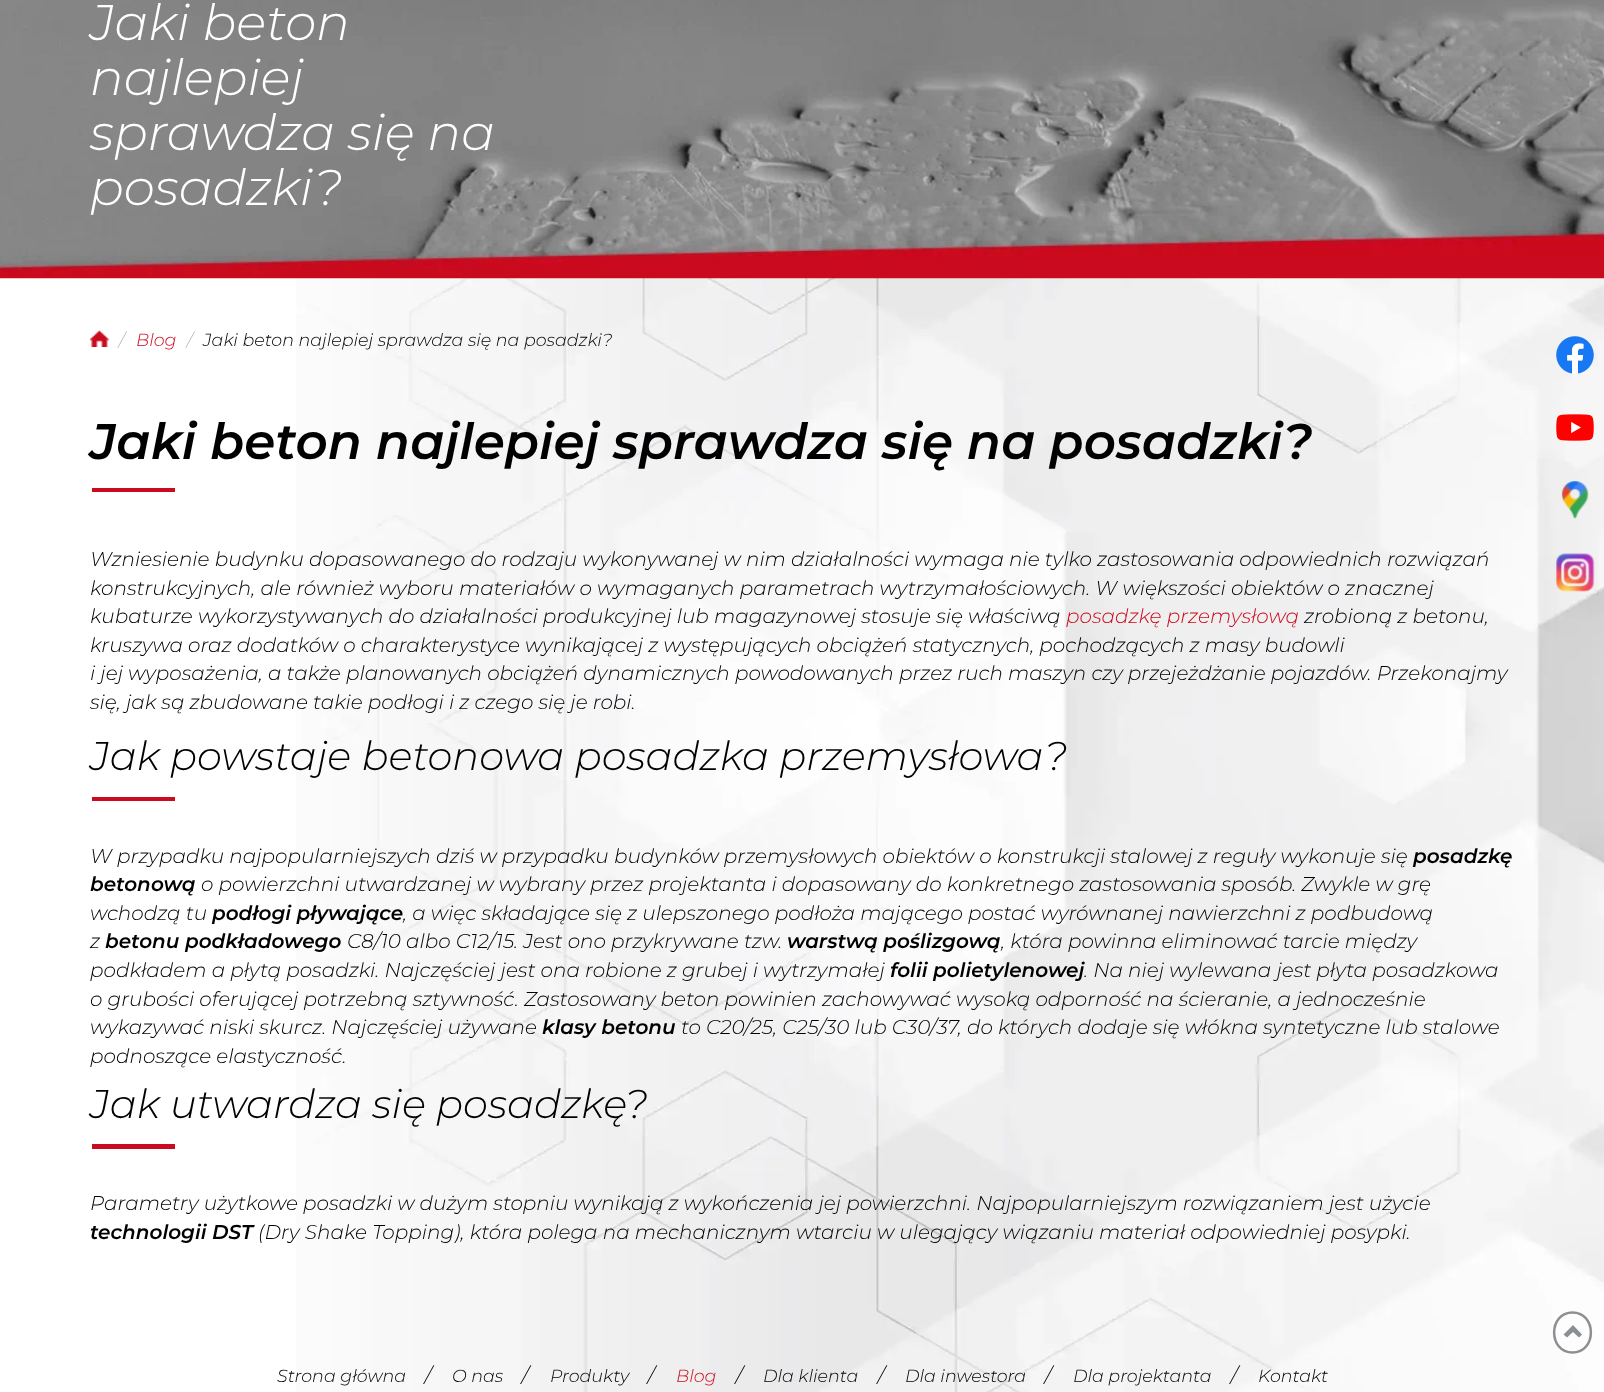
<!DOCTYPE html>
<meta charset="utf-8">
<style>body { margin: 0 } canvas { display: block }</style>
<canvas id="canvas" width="1604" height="1392"></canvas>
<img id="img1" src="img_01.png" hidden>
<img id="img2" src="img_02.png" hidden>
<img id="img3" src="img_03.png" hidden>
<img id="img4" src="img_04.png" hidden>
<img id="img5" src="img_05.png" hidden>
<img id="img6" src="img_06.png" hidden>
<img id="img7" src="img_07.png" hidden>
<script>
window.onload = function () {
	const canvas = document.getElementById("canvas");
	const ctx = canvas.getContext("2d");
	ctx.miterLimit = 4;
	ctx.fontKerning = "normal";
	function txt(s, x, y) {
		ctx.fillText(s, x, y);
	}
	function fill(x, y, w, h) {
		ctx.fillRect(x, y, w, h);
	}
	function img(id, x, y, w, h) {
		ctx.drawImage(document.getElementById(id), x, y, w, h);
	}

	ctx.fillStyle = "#FFFFFF";
	fill(0, 0, 1604, 1392);
	img("img1", 296, 278, 1308, 1114);
	img("img2", 0, 0, 1604, 279);
	img("img3", 90, 330, 19, 17);
	ctx.fillStyle = "#CA0A1E";
	fill(92, 488, 83, 4);
	fill(92, 797, 83, 4);
	fill(92, 1144, 83, 5);
	img("img4", 1556, 336, 38, 38);
	img("img5", 1556, 414, 38, 27);
	img("img6", 1561, 481, 28, 38);
	img("img7", 1556, 553, 39, 39);
	ctx.beginPath();
	ctx.moveTo(1572.5, 1312.5);
	ctx.bezierCurveTo(1597, 1312.5, 1597, 1352.5, 1572.5, 1352.5);
	ctx.bezierCurveTo(1548, 1352.5, 1548, 1312.5, 1572.5, 1312.5);
	ctx.closePath();
	ctx.strokeStyle = "#8C8F91";
	ctx.lineWidth = 2.5;
	ctx.stroke();
	ctx.fillStyle = "#8C8F91";
	ctx.beginPath();
	ctx.moveTo(1582, 1334.5);
	ctx.lineTo(1579, 1337.5);
	ctx.lineTo(1573, 1332);
	ctx.lineTo(1567, 1337.5);
	ctx.lineTo(1563.5, 1334.5);
	ctx.lineTo(1573, 1325);
	ctx.closePath();
	ctx.fill();
	ctx.font = "italic 300 50px Montserrat";
	ctx.fillStyle = "#FFFFFF";
	txt("Jaki beton", 90, 40);
	txt("najlepiej", 90, 95);
	txt("sprawdza się na", 90, 150);
	txt("posadzki?", 90, 205);
	ctx.font = "italic 300 17.5px Montserrat";
	ctx.fillStyle = "#B8B8B8";
	txt("/", 119, 346);
	ctx.fillStyle = "#CB0A1E";
	txt("Blog", 136, 346);
	ctx.fillStyle = "#B8B8B8";
	txt("/", 187, 346);
	ctx.fillStyle = "#000000";
	txt("Jaki beton najlepiej sprawdza się na posadzki?", 203, 346);
	ctx.font = "italic 600 50px Montserrat";
	txt("Jaki beton najlepiej sprawdza się na posadzki?", 90, 459);
	ctx.font = "italic 300 20px Montserrat";
	txt("Wzniesienie budynku dopasowanego do rodzaju wykonywanej w nim działalności wymaga nie tylko zastosowania odpowiednich rozwiązań", 90, 566);
	txt("konstrukcyjnych, ale również wyboru materiałów o wymaganych parametrach wytrzymałościowych. W większości obiektów o znacznej", 90, 595);
	txt("kubaturze wykorzystywanych do działalności produkcyjnej lub magazynowej stosuje się właściwą", 90, 623);
	ctx.fillStyle = "#CB0A1E";
	txt("posadzkę przemysłową", 1066, 623);
	ctx.fillStyle = "#000000";
	txt("zrobioną z betonu,", 1304, 623);
	txt("kruszywa oraz dodatków o charakterystyce wynikającej z występujących obciążeń statycznych, pochodzących z masy budowli", 90, 652);
	txt("i jej wyposażenia, a także planowanych obciążeń dynamicznych powodowanych przez ruch maszyn czy przejeżdżanie pojazdów. Przekonajmy", 90, 680);
	txt("się, jak są zbudowane takie podłogi i z czego się je robi.", 90, 709);
	ctx.font = "italic 300 40px Montserrat";
	txt("Jak powstaje betonowa posadzka przemysłowa?", 90, 770);
	ctx.font = "italic 300 20px Montserrat";
	txt("W przypadku najpopularniejszych dziś w przypadku budynków przemysłowych obiektów o konstrukcji stalowej z reguły wykonuje się", 90, 863);
	ctx.font = "italic 600 20px Montserrat";
	txt("posadzkę", 1413, 863);
	txt("betonową", 90, 891);
	ctx.font = "italic 300 20px Montserrat";
	txt("o powierzchni utwardzanej w wybrany przez projektanta i dopasowany do konkretnego zastosowania sposób. Zwykle w grę", 201, 891);
	txt("wchodzą tu", 90, 920);
	ctx.font = "italic 600 20px Montserrat";
	txt("podłogi pływające", 212, 920);
	ctx.font = "italic 300 20px Montserrat";
	txt(", a więc składające się z ulepszonego podłoża mającego postać wyrównanej nawierzchni z podbudową", 403, 920);
	txt("z", 90, 948);
	ctx.font = "italic 600 20px Montserrat";
	txt("betonu podkładowego", 105, 948);
	ctx.font = "italic 300 20px Montserrat";
	txt("C8/10 albo C12/15. Jest ono przykrywane tzw.", 347, 948);
	ctx.font = "italic 600 20px Montserrat";
	txt("warstwą poślizgową", 787, 948);
	ctx.font = "italic 300 20px Montserrat";
	txt(", która powinna eliminować tarcie między", 1001, 948);
	txt("podkładem a płytą posadzki. Najczęściej jest ona robione z grubej i wytrzymałej", 90, 977);
	ctx.font = "italic 600 20px Montserrat";
	txt("folii polietylenowej", 890, 977);
	ctx.font = "italic 300 20px Montserrat";
	txt(". Na niej wylewana jest płyta posadzkowa", 1084, 977);
	txt("o grubości oferującej potrzebną sztywność. Zastosowany beton powinien zachowywać wysoką odporność na ścieranie, a jednocześnie", 90, 1006);
	txt("wykazywać niski skurcz. Najczęściej używane", 90, 1034);
	ctx.font = "italic 600 20px Montserrat";
	txt("klasy betonu", 542, 1034);
	ctx.font = "italic 300 20px Montserrat";
	txt("to C20/25, C25/30 lub C30/37, do których dodaje się włókna syntetyczne lub stalowe", 681, 1034);
	txt("podnoszące elastyczność.", 90, 1063);
	ctx.font = "italic 300 40px Montserrat";
	txt("Jak utwardza się posadzkę?", 90, 1118);
	ctx.font = "italic 300 20px Montserrat";
	txt("Parametry użytkowe posadzki w dużym stopniu wynikają z wykończenia jej powierzchni. Najpopularniejszym rozwiązaniem jest użycie", 90, 1210);
	ctx.font = "italic 600 20px Montserrat";
	txt("technologii DST", 90, 1239);
	ctx.font = "italic 300 20px Montserrat";
	txt("(Dry Shake Topping), która polega na mechanicznym wtarciu w ulegający wiązaniu materiał odpowiedniej posypki.", 258, 1239);
	ctx.font = "italic 300 17.5px Montserrat";
	txt("Strona główna", 277, 1382);
	ctx.font = "italic 300 20px Montserrat";
	txt("/", 425, 1382);
	ctx.font = "italic 300 17.5px Montserrat";
	txt("O nas", 452, 1382);
	ctx.font = "italic 300 20px Montserrat";
	txt("/", 522, 1382);
	ctx.font = "italic 300 17.5px Montserrat";
	txt("Produkty", 550, 1382);
	ctx.font = "italic 300 20px Montserrat";
	txt("/", 648, 1382);
	ctx.font = "italic 300 17.5px Montserrat";
	ctx.fillStyle = "#CB0A1E";
	txt("Blog", 676, 1382);
	ctx.font = "italic 300 20px Montserrat";
	ctx.fillStyle = "#000000";
	txt("/", 736, 1382);
	ctx.font = "italic 300 17.5px Montserrat";
	txt("Dla klienta", 763, 1382);
	ctx.font = "italic 300 20px Montserrat";
	txt("/", 878, 1382);
	ctx.font = "italic 300 17.5px Montserrat";
	txt("Dla inwestora", 905, 1382);
	ctx.font = "italic 300 20px Montserrat";
	txt("/", 1045, 1382);
	ctx.font = "italic 300 17.5px Montserrat";
	txt("Dla projektanta", 1073, 1382);
	ctx.font = "italic 300 20px Montserrat";
	txt("/", 1231, 1382);
	ctx.font = "italic 300 17.5px Montserrat";
	txt("Kontakt", 1258, 1382);
};
</script>
